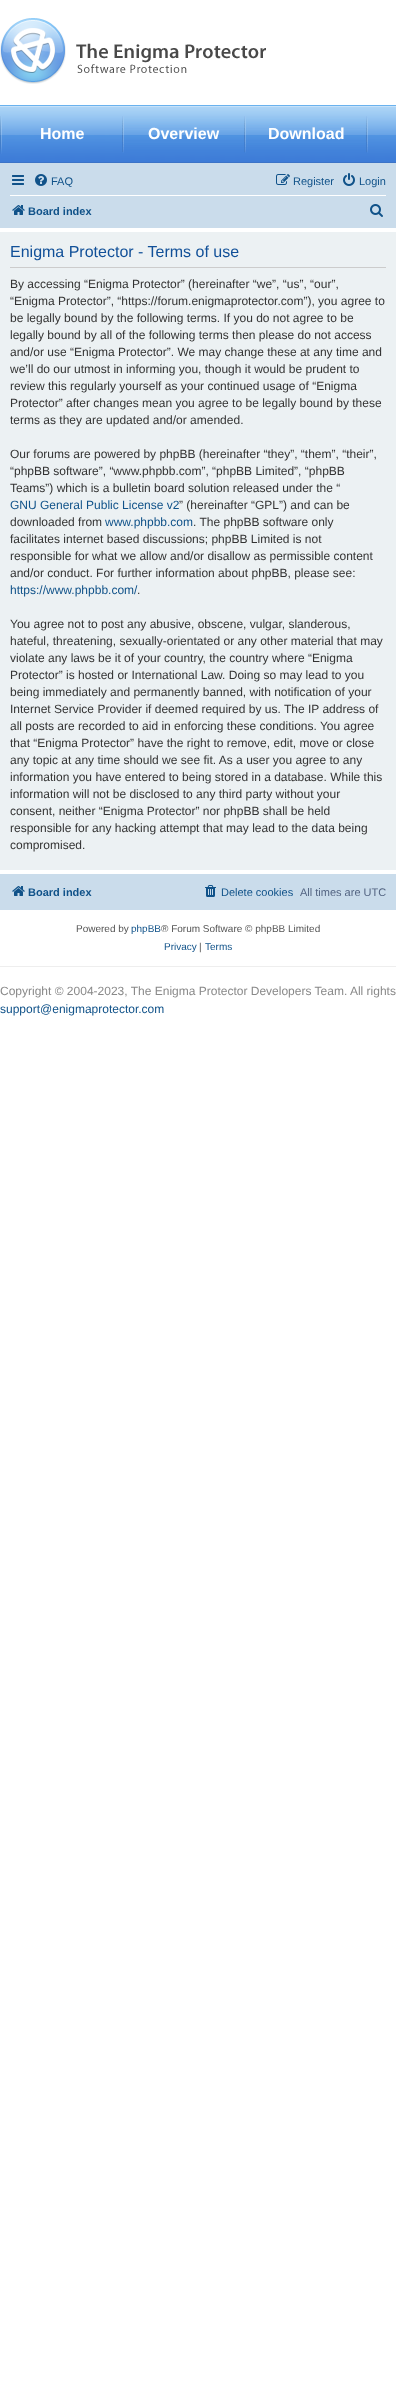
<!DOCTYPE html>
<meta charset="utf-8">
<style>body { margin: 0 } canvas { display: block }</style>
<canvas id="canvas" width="396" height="2405"></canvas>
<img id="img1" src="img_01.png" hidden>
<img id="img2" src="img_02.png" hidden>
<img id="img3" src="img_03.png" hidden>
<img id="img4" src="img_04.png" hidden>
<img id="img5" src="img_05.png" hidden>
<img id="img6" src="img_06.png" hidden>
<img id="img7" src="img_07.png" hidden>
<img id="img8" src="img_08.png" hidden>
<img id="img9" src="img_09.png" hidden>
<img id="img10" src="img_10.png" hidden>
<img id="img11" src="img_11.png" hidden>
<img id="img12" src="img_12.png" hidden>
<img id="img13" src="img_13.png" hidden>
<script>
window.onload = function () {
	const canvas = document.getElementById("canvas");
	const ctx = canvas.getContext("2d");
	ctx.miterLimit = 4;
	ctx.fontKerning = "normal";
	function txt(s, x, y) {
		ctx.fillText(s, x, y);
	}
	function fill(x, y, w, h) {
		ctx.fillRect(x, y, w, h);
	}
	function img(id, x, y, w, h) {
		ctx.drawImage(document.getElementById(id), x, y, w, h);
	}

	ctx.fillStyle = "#FFFFFF";
	fill(0, 0, 396, 2405);
	img("img1", 0, 18, 266, 66);
	img("img2", 0, 106, 396, 56);
	ctx.fillStyle = "#6AB2EE";
	fill(0, 105, 396, 1);
	ctx.fillStyle = "#3B73C7";
	fill(0, 162, 396, 1);
	img("img3", 0, 116, 2, 38);
	img("img4", 122, 116, 1, 36);
	img("img5", 123, 116, 122, 37);
	img("img5", 245, 116, 122, 37);
	img("img6", 367, 118, 1, 35);
	ctx.fillStyle = "#CADCEB";
	fill(0, 163, 396, 65);
	img("img7", 12, 175, 12, 10);
	img("img8", 35, 174, 12, 12);
	img("img9", 276, 174, 14, 11);
	img("img10", 343, 173, 12, 13);
	ctx.fillStyle = "#FFFFFF";
	fill(10, 195, 376, 1);
	img("img11", 12, 205, 13, 10);
	img("img12", 370, 204, 13, 13);
	ctx.fillStyle = "#ECF1F3";
	fill(0, 232, 396, 638);
	ctx.fillStyle = "#CCCCCC";
	fill(10, 267, 376, 1);
	ctx.fillStyle = "#CADCEB";
	fill(0, 874, 396, 36);
	img("img11", 12, 886, 13, 10);
	img("img13", 205, 885, 11, 12);
	ctx.fillStyle = "#EEEEEE";
	fill(0, 966, 396, 1);
	ctx.font = "bold 16px Liberation Sans";
	ctx.fillStyle = "#FFFFFF";
	txt("Home", 40, 139);
	txt("Overview", 148, 139);
	txt("Download", 268, 139);
	ctx.font = "11px Liberation Sans";
	ctx.fillStyle = "#105289";
	txt("FAQ", 51, 185);
	txt("Register", 293, 185);
	txt("Login", 359, 185);
	ctx.font = "bold 11px Liberation Sans";
	txt("Board index", 28, 215);
	ctx.font = "16px Liberation Sans";
	ctx.fillStyle = "#115098";
	txt("Enigma Protector - Terms of use", 10, 257);
	ctx.font = "12px Liberation Sans";
	ctx.fillStyle = "#333333";
	txt("By accessing “Enigma Protector” (hereinafter “we”, “us”, “our”,", 10, 288);
	txt("“Enigma Protector”, “https://forum.enigmaprotector.com”), you agree to", 10, 305);
	txt("be legally bound by the following terms. If you do not agree to be", 10, 322);
	txt("legally bound by all of the following terms then please do not access", 10, 339);
	txt("and/or use “Enigma Protector”. We may change these at any time and", 10, 356);
	txt("we’ll do our utmost in informing you, though it would be prudent to", 10, 373);
	txt("review this regularly yourself as your continued usage of “Enigma", 10, 390);
	txt("Protector” after changes mean you agree to be legally bound by these", 10, 407);
	txt("terms as they are updated and/or amended.", 10, 424);
	txt("Our forums are powered by phpBB (hereinafter “they”, “them”, “their”,", 10, 458);
	txt("“phpBB software”, “www.phpbb.com”, “phpBB Limited”, “phpBB", 10, 475);
	txt("Teams”) which is a bulletin board solution released under the “", 10, 492);
	ctx.fillStyle = "#105289";
	txt("GNU General Public License v2", 10, 509);
	ctx.fillStyle = "#333333";
	txt("” (hereinafter “GPL”) and can be", 179, 509);
	txt("downloaded from", 10, 526);
	ctx.fillStyle = "#105289";
	txt("www.phpbb.com", 105, 526);
	ctx.fillStyle = "#333333";
	txt(". The phpBB software only", 193, 526);
	txt("facilitates internet based discussions; phpBB Limited is not", 10, 543);
	txt("responsible for what we allow and/or disallow as permissible content", 10, 560);
	txt("and/or conduct. For further information about phpBB, please see:", 10, 577);
	ctx.fillStyle = "#105289";
	txt("https://www.phpbb.com/", 10, 594);
	ctx.fillStyle = "#333333";
	txt(".", 137, 594);
	txt("You agree not to post any abusive, obscene, vulgar, slanderous,", 10, 628);
	txt("hateful, threatening, sexually-orientated or any other material that may", 10, 645);
	txt("violate any laws be it of your country, the country where “Enigma", 10, 662);
	txt("Protector” is hosted or International Law. Doing so may lead to you", 10, 679);
	txt("being immediately and permanently banned, with notification of your", 10, 696);
	txt("Internet Service Provider if deemed required by us. The IP address of", 10, 713);
	txt("all posts are recorded to aid in enforcing these conditions. You agree", 10, 730);
	txt("that “Enigma Protector” have the right to remove, edit, move or close", 10, 747);
	txt("any topic at any time should we see fit. As a user you agree to any", 10, 764);
	txt("information you have entered to being stored in a database. While this", 10, 781);
	txt("information will not be disclosed to any third party without your", 10, 798);
	txt("consent, neither “Enigma Protector” nor phpBB shall be held", 10, 815);
	txt("responsible for any hacking attempt that may lead to the data being", 10, 832);
	txt("compromised.", 10, 849);
	ctx.font = "bold 11px Liberation Sans";
	ctx.fillStyle = "#105289";
	txt("Board index", 28, 896);
	ctx.font = "11px Liberation Sans";
	txt("Delete cookies", 221, 896);
	ctx.fillStyle = "#536482";
	txt("All times are UTC", 300, 896);
	ctx.font = "10px Liberation Sans";
	ctx.fillStyle = "#555555";
	txt("Powered by", 76, 932);
	ctx.fillStyle = "#105289";
	txt("phpBB", 131, 932);
	ctx.fillStyle = "#555555";
	txt("® Forum Software © phpBB Limited", 161, 932);
	ctx.fillStyle = "#105289";
	txt("Privacy", 164, 950);
	ctx.fillStyle = "#555555";
	txt("|", 199, 950);
	ctx.fillStyle = "#105289";
	txt("Terms", 205, 950);
	ctx.font = "12px Liberation Sans";
	ctx.fillStyle = "#898989";
	txt("Copyright © 2004-2023, The Enigma Protector Developers Team. All rights", 0, 995);
	ctx.fillStyle = "#105289";
	txt("support@enigmaprotector.com", 0, 1013);
};
</script>
